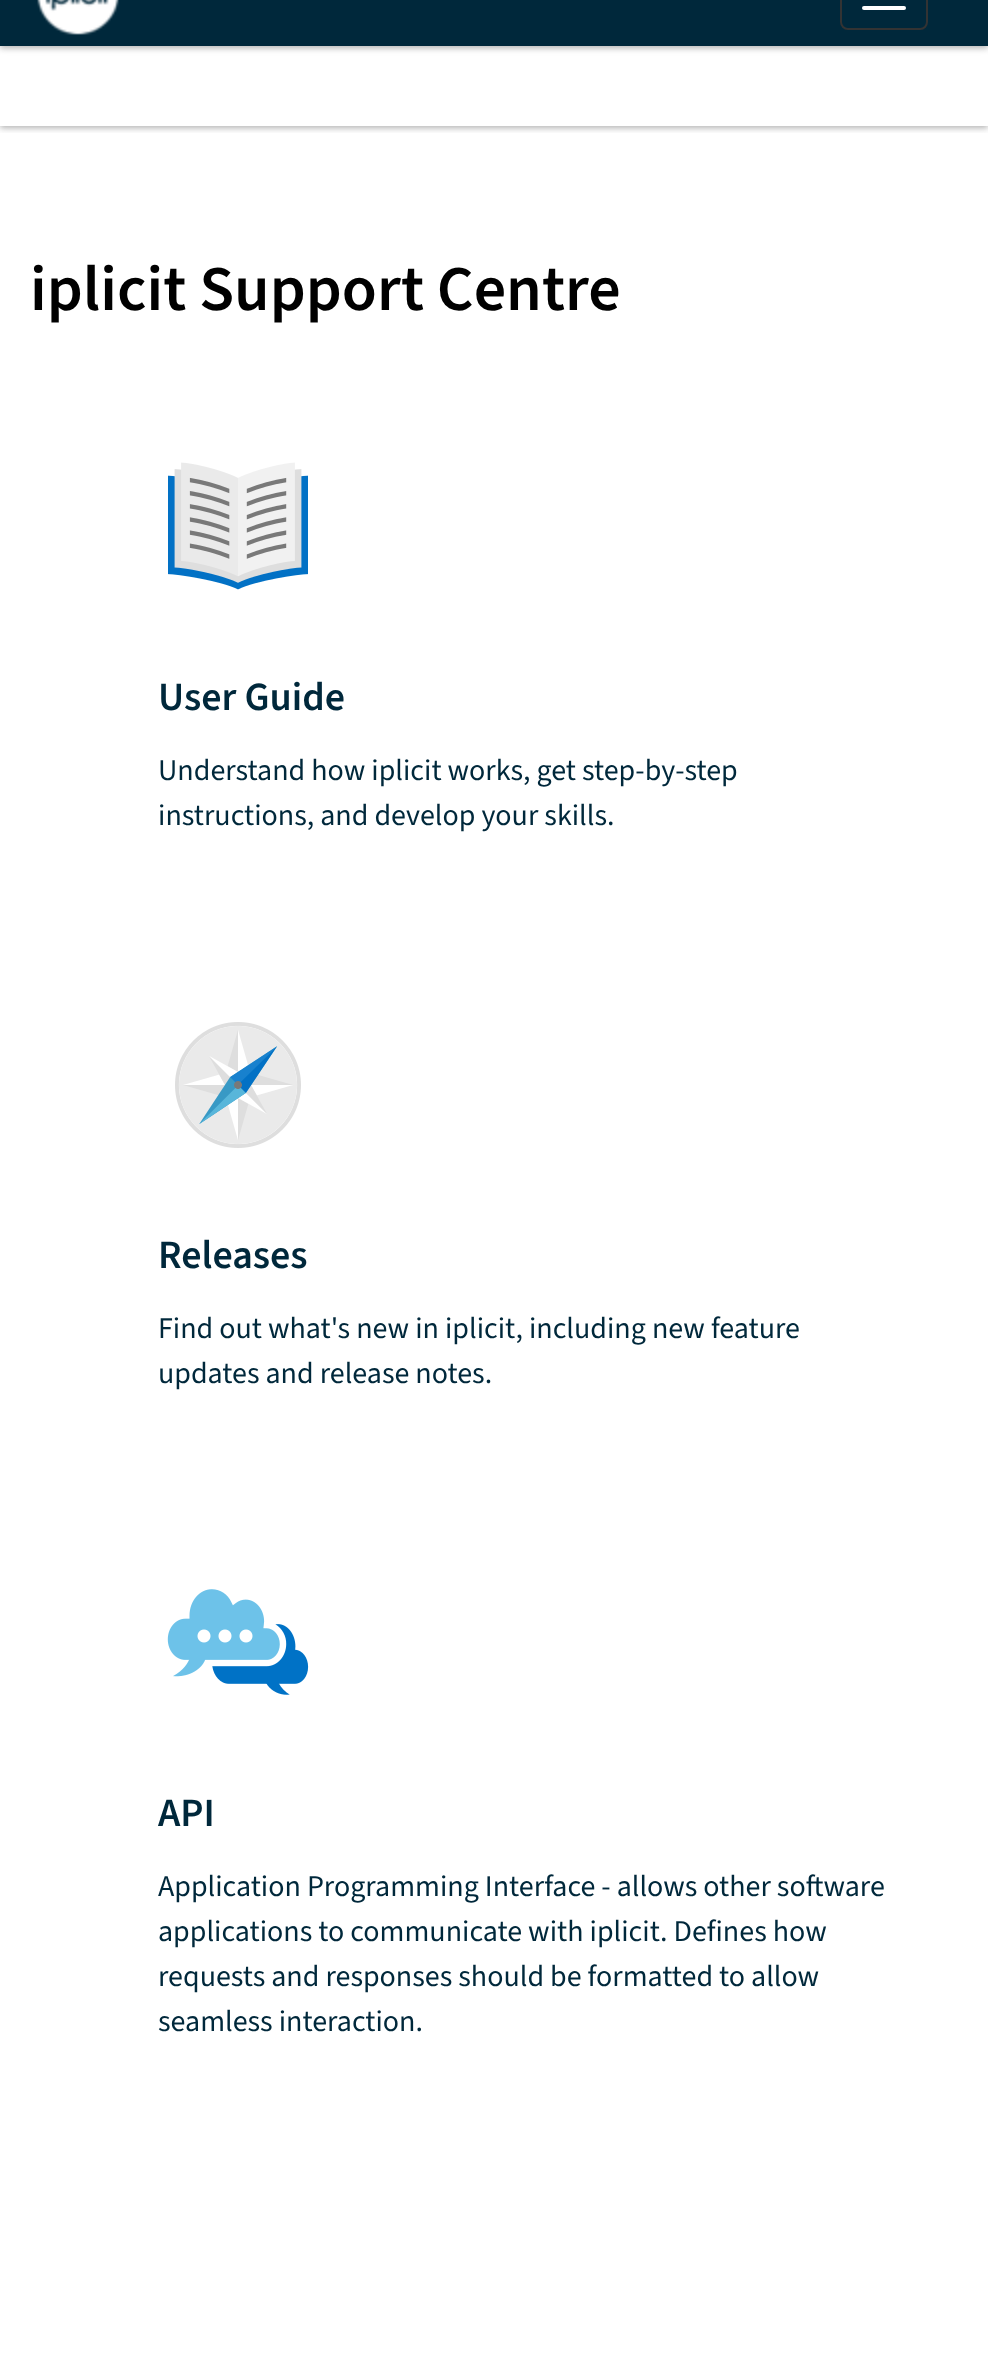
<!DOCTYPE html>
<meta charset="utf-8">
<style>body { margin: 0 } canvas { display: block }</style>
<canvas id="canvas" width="988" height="2354"></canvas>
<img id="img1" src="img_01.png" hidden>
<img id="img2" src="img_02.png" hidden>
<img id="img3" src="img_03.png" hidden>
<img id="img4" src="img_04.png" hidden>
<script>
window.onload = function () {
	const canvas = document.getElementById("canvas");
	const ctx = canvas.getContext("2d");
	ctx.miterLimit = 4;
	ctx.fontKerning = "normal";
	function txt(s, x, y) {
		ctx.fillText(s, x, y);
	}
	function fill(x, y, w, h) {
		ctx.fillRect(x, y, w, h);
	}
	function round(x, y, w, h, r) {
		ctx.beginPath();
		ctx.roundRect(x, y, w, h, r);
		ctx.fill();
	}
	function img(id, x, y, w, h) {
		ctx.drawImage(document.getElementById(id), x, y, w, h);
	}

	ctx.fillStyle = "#FFFFFF";
	fill(0, 0, 988, 2354);
	ctx.fillStyle = "rgba(100, 100, 100, 0.5)";
	ctx.filter = "blur(3px)";
	ctx.beginPath();
	ctx.rect(0, -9, 988, 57);
	ctx.fill();
	ctx.filter = "none";
	ctx.save();
	ctx.beginPath();
	ctx.rect(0, 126, 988, 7);
	ctx.clip();
	ctx.filter = "blur(3px)";
	ctx.beginPath();
	ctx.rect(0, 48, 988, 80);
	ctx.fill();
	ctx.filter = "none";
	ctx.restore();
	ctx.fillStyle = "#00283B";
	fill(0, 0, 988, 46);
	img("img1", 37, 0, 82, 35);
	ctx.beginPath();
	ctx.roundRect(841, -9, 86, 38, 7);
	ctx.strokeStyle = "#333333";
	ctx.lineWidth = 2;
	ctx.stroke();
	ctx.fillStyle = "#FFFFFF";
	round(862, 6, 44, 4, 2);
	img("img2", 168, 462, 140, 128);
	img("img3", 175, 1022, 126, 126);
	img("img4", 167, 1589, 142, 106);
	ctx.font = "600 64px 'Source Sans 3'";
	ctx.fillStyle = "#000000";
	txt("iplicit Support Centre", 30, 310);
	ctx.font = "600 40px 'Source Sans 3'";
	ctx.fillStyle = "#00283B";
	txt("User Guide", 158, 710);
	ctx.font = "200 30px 'Source Sans 3'";
	txt("Understand how iplicit works, get step-by-step", 158, 780);
	txt("instructions, and develop your skills.", 158, 825);
	ctx.font = "600 40px 'Source Sans 3'";
	txt("Releases", 158, 1268);
	ctx.font = "200 30px 'Source Sans 3'";
	txt("Find out what's new in iplicit, including new feature", 158, 1338);
	txt("updates and release notes.", 158, 1383);
	ctx.font = "600 40px 'Source Sans 3'";
	txt("API", 158, 1826);
	ctx.font = "200 30px 'Source Sans 3'";
	txt("Application Programming Interface - allows other software", 158, 1896);
	txt("applications to communicate with iplicit. Defines how", 158, 1941);
	txt("requests and responses should be formatted to allow", 158, 1986);
	txt("seamless interaction.", 158, 2031);
};
</script>
